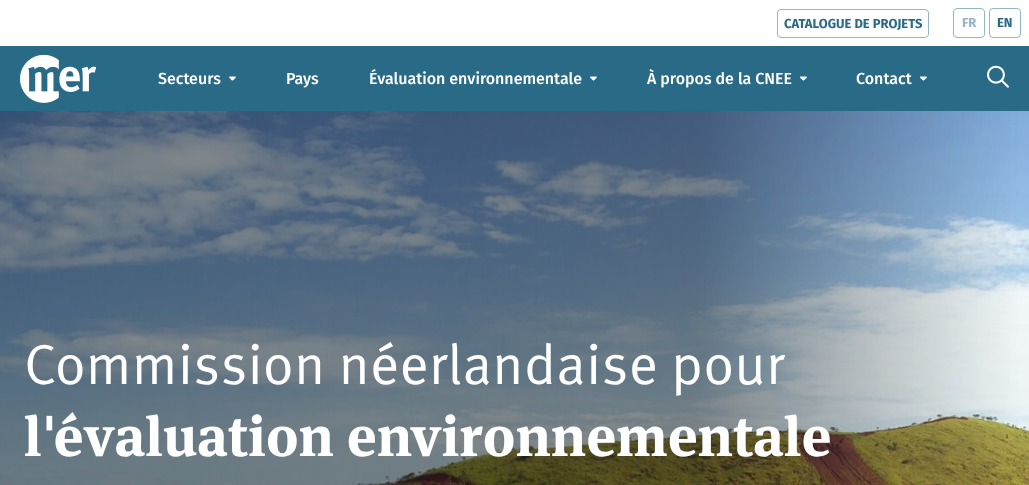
<!DOCTYPE html>
<meta charset="utf-8">
<style>body { margin: 0 } canvas { display: block }</style>
<canvas id="canvas" width="1029" height="485"></canvas>
<img id="img1" src="img_01.png" hidden>
<img id="img2" src="img_02.png" hidden>
<img id="img3" src="img_03.png" hidden>
<img id="img4" src="img_04.png" hidden>
<script>
window.onload = function () {
	const canvas = document.getElementById("canvas");
	const ctx = canvas.getContext("2d");
	ctx.miterLimit = 4;
	ctx.fontKerning = "normal";
	function txt(s, x, y) {
		ctx.fillText(s, x, y);
	}
	function fill(x, y, w, h) {
		ctx.fillRect(x, y, w, h);
	}
	function img(id, x, y, w, h) {
		ctx.drawImage(document.getElementById(id), x, y, w, h);
	}

	ctx.fillStyle = "#FFFFFF";
	fill(0, 0, 1029, 485);
	ctx.beginPath();
	ctx.roundRect(777.5, 9.5, 151, 28, 3.5);
	ctx.strokeStyle = "#94B5C3";
	ctx.stroke();
	ctx.beginPath();
	ctx.roundRect(953.5, 8.5, 31, 29, 3.5);
	ctx.stroke();
	ctx.beginPath();
	ctx.roundRect(989.5, 8.5, 31, 29, 3.5);
	ctx.stroke();
	ctx.fillStyle = "#296B87";
	fill(0, 46, 1029, 65);
	img("img1", 20, 55, 76, 48);
	img("img2", 229, 76, 7, 5);
	img("img2", 590, 76, 7, 5);
	img("img2", 800, 76, 7, 5);
	img("img2", 920, 76, 7, 5);
	img("img3", 987, 65, 22, 23);
	img("img4", 0, 111, 1029, 374);
	ctx.font = "bold 13px Fira Sans";
	txt("CATALOGUE DE PROJETS", 784, 28);
	ctx.fillStyle = "#94B5C3";
	txt("FR", 962, 27);
	ctx.fillStyle = "#296B87";
	txt("EN", 997, 27);
	ctx.font = "500 16px Fira Sans";
	ctx.fillStyle = "#FFFFFF";
	txt("Secteurs", 158, 84);
	txt("Pays", 286, 84);
	txt("Évaluation environnementale", 369, 84);
	txt("À propos de la CNEE", 647, 84);
	txt("Contact", 856, 84);
	ctx.font = "56.6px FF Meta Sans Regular";
	txt("Commission néerlandaise pour", 24, 384);
	ctx.font = "56.6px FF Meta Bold";
	txt("l'évaluation environnementale", 24, 456);
};
</script>
